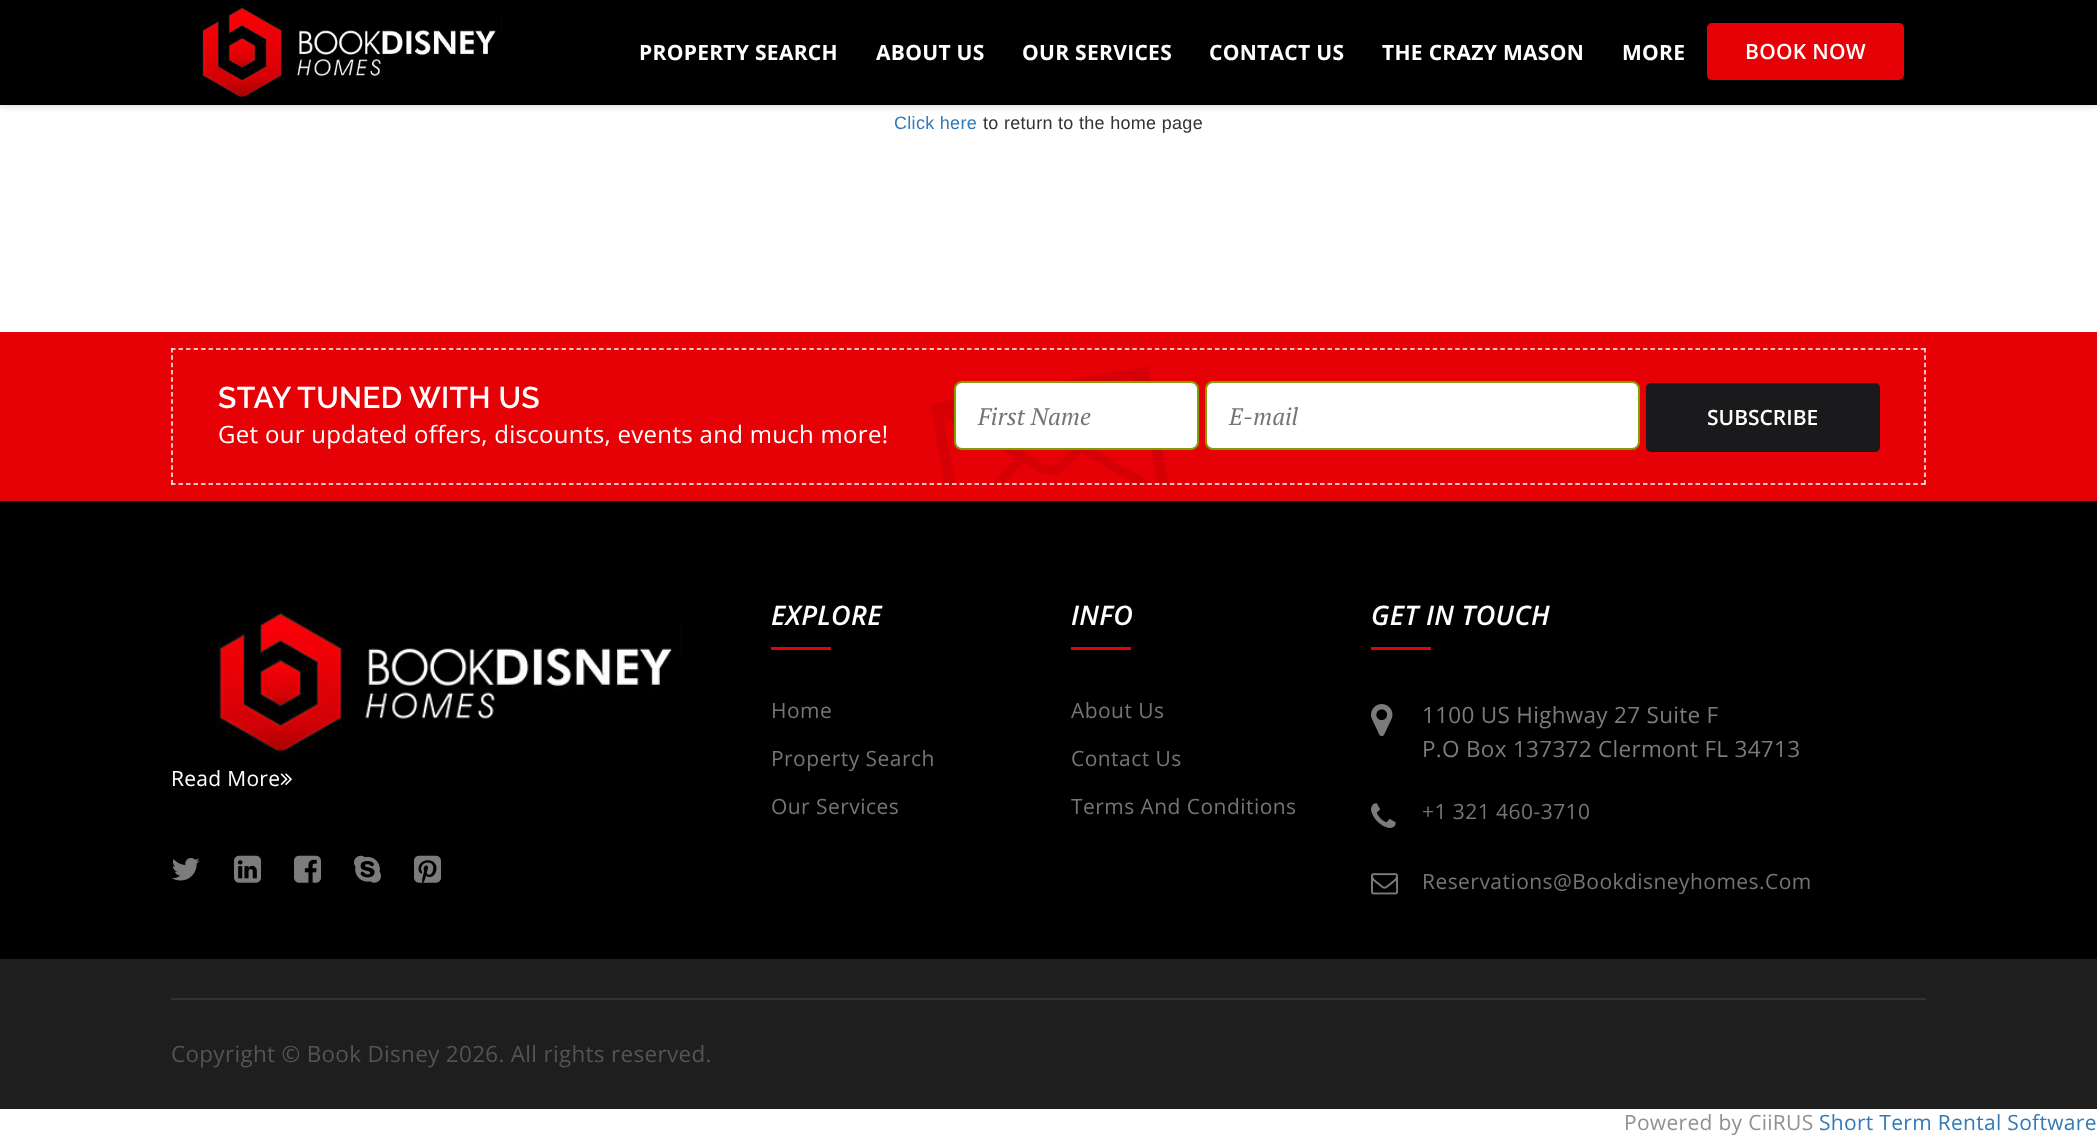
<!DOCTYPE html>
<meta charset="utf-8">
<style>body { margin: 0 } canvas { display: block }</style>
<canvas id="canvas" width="2097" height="1138"></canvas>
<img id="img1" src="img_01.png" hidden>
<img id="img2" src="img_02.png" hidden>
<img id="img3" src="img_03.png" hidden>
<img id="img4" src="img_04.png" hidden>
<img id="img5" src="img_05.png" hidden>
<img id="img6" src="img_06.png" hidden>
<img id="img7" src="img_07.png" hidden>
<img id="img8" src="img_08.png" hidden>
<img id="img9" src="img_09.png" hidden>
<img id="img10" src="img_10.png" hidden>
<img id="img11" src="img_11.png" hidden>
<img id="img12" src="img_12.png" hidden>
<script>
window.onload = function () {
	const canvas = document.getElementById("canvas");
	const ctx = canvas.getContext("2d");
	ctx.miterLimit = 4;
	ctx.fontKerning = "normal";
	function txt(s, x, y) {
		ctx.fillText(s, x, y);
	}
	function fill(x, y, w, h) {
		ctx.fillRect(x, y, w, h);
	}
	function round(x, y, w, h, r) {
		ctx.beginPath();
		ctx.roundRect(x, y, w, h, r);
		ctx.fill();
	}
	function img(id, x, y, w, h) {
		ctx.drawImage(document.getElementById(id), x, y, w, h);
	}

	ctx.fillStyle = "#FFFFFF";
	fill(0, 0, 2097, 1138);
	ctx.fillStyle = "rgba(0, 0, 0, 0.2)";
	ctx.filter = "blur(4px)";
	ctx.beginPath();
	ctx.rect(0, 0, 2097, 105);
	ctx.fill();
	ctx.filter = "none";
	ctx.fillStyle = "#000000";
	fill(0, 0, 2097, 105);
	img("img1", 200, 6, 302, 93);
	ctx.fillStyle = "#E60106";
	round(1707, 23, 197, 57, 5);
	fill(0, 332, 2097, 169);
	img("img2", 930, 366, 239, 117);
	ctx.beginPath();
	ctx.moveTo(171, 349);
	ctx.lineTo(1926, 349);
	ctx.strokeStyle = "#FFFFFF";
	ctx.lineWidth = 1.5;
	ctx.setLineDash([4.5, 3.01]);
	ctx.stroke();
	ctx.beginPath();
	ctx.moveTo(1925, 348);
	ctx.lineTo(1925, 484.5);
	ctx.setLineDash([4.5, 2.83]);
	ctx.stroke();
	ctx.beginPath();
	ctx.moveTo(171, 484);
	ctx.lineTo(1926, 484);
	ctx.setLineDash([4.5, 3.01]);
	ctx.stroke();
	ctx.beginPath();
	ctx.moveTo(172, 348);
	ctx.lineTo(172, 484.5);
	ctx.setLineDash([4.5, 2.83]);
	ctx.stroke();
	ctx.fillStyle = "#FFFFFF";
	ctx.beginPath();
	ctx.roundRect(955, 382, 243, 67, 7);
	ctx.fill();
	ctx.strokeStyle = "#7DA100";
	ctx.lineWidth = 2;
	ctx.setLineDash([]);
	ctx.stroke();
	ctx.beginPath();
	ctx.roundRect(1206, 382, 433, 67, 7);
	ctx.fill();
	ctx.stroke();
	ctx.fillStyle = "#1A1A1C";
	round(1646, 383, 234, 69, 5);
	ctx.fillStyle = "#1E1E1E";
	fill(0, 959, 2097, 150);
	ctx.fillStyle = "#000000";
	fill(0, 501, 2097, 458);
	img("img3", 216, 610, 466, 145);
	img("img4", 280, 773, 12, 12);
	img("img5", 172, 858, 28, 23);
	img("img6", 234, 855, 27, 28);
	img("img7", 294, 855, 27, 28);
	img("img8", 354, 855, 27, 28);
	img("img9", 414, 855, 27, 28);
	ctx.fillStyle = "#E60106";
	fill(771, 647, 60, 3);
	fill(1071, 647, 60, 3);
	fill(1371, 647, 60, 3);
	img("img10", 1371, 704, 22, 33);
	img("img11", 1371, 803, 25, 25);
	img("img12", 1371, 873, 27, 22);
	ctx.fillStyle = "#323232";
	fill(171, 998, 1755, 2);
	ctx.letterSpacing = "0.3px";
	ctx.font = "bold 21px Open Sans";
	ctx.fillStyle = "#FFFFFF";
	txt("PROPERTY SEARCH", 639, 60);
	txt("ABOUT US", 876, 60);
	txt("OUR SERVICES", 1022, 60);
	txt("CONTACT US", 1209, 60);
	txt("THE CRAZY MASON", 1382, 60);
	txt("MORE", 1622, 60);
	ctx.font = "600 21px Open Sans";
	txt("BOOK NOW", 1745, 59);
	ctx.font = "18px Liberation Sans";
	ctx.fillStyle = "#337AB7";
	txt("Click here", 894, 129);
	ctx.fillStyle = "#333333";
	txt("to return to the home page", 983, 129);
	ctx.font = "600 30px Raleway";
	ctx.fillStyle = "#FFFFFF";
	txt("STAY TUNED WITH US", 218, 408);
	ctx.font = "24px Open Sans";
	txt("Get our updated offers, discounts, events and much more!", 218, 443);
	ctx.letterSpacing = "0px";
	ctx.font = "italic 24px PT Serif";
	ctx.fillStyle = "#757575";
	txt("First Name", 978, 425);
	txt("E-mail", 1229, 425);
	ctx.font = "600 21px Open Sans";
	ctx.fillStyle = "#FFFFFF";
	txt("SUBSCRIBE", 1707, 425);
	ctx.letterSpacing = "0.3px";
	ctx.font = "21px Open Sans";
	txt("Read More", 171, 786);
	ctx.font = "italic 600 27px Open Sans";
	txt("EXPLORE", 771, 625);
	ctx.letterSpacing = "0.45px";
	ctx.font = "21px Open Sans";
	ctx.fillStyle = "#757575";
	txt("Home", 771, 718);
	txt("Property Search", 771, 766);
	txt("Our Services", 771, 814);
	ctx.letterSpacing = "0.3px";
	ctx.font = "italic 600 27px Open Sans";
	ctx.fillStyle = "#FFFFFF";
	txt("INFO", 1071, 625);
	ctx.letterSpacing = "0.45px";
	ctx.font = "21px Open Sans";
	ctx.fillStyle = "#757575";
	txt("About Us", 1071, 718);
	txt("Contact Us", 1071, 766);
	txt("Terms And Conditions", 1071, 814);
	ctx.letterSpacing = "0.3px";
	ctx.font = "italic 600 27px Open Sans";
	ctx.fillStyle = "#FFFFFF";
	txt("GET IN TOUCH", 1371, 625);
	ctx.font = "22.5px Open Sans";
	ctx.fillStyle = "#7B7B7B";
	txt("1100 US Highway 27 Suite F", 1422, 723);
	txt("P.O Box 137372 Clermont FL 34713", 1422, 757);
	ctx.letterSpacing = "0.45px";
	ctx.font = "21px Open Sans";
	ctx.fillStyle = "#757575";
	txt("+1 321 460-3710", 1422, 819);
	txt("Reservations@Bookdisneyhomes.Com", 1422, 889);
	ctx.letterSpacing = "0.3px";
	ctx.font = "22.5px Open Sans";
	ctx.fillStyle = "#545454";
	txt("Copyright © Book Disney 2026. All rights reserved.", 171, 1062);
	ctx.font = "21px Open Sans";
	ctx.fillStyle = "#919191";
	txt("Powered by CiiRUS", 1624, 1130);
	ctx.fillStyle = "#337AB7";
	txt("Short Term Rental Software", 1819, 1130);
};
</script>
